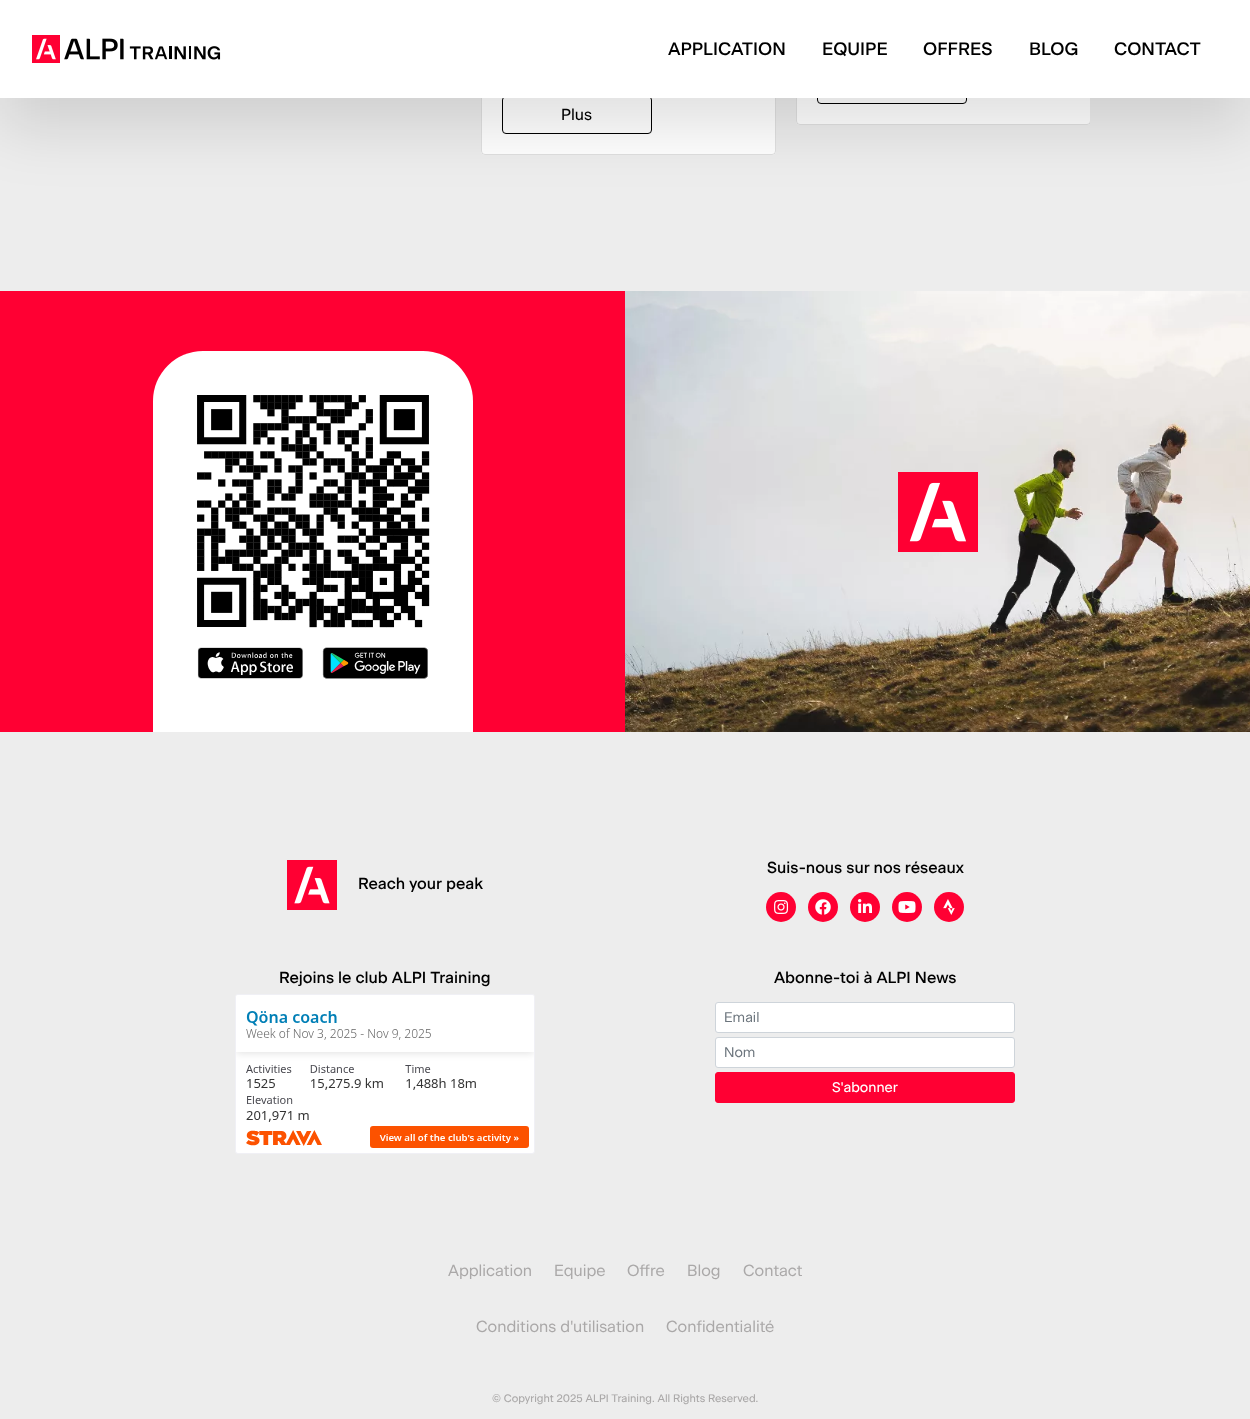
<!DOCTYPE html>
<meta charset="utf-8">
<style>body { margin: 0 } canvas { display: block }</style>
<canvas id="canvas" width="1250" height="1419"></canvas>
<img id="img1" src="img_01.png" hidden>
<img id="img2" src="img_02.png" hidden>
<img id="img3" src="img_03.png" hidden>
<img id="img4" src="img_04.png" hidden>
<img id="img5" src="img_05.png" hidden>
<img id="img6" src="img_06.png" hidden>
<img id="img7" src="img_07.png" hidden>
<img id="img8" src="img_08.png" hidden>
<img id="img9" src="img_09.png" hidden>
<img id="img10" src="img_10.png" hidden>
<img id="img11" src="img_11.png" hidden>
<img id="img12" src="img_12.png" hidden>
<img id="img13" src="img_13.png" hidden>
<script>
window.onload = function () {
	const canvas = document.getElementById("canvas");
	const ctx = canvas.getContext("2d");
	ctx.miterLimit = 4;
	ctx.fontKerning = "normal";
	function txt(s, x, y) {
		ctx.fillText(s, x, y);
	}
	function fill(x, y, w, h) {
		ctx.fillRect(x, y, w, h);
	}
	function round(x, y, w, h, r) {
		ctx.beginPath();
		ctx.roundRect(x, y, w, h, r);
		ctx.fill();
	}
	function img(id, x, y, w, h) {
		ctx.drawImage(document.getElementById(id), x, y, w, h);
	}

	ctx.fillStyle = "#EDEDED";
	fill(0, 0, 1250, 1419);
	ctx.fillStyle = "#FFFFFF";
	round(481, -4, 295, 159, 4);
	ctx.beginPath();
	ctx.roundRect(481.5, -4.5, 294, 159, 3.5);
	ctx.strokeStyle = "rgba(0, 0, 0, 0.12)";
	ctx.stroke();
	ctx.beginPath();
	ctx.roundRect(502.5, 96.5, 149, 37, 3.5);
	ctx.strokeStyle = "#000000";
	ctx.stroke();
	ctx.save();
	ctx.beginPath();
	ctx.rect(480, 0, 610, 185);
	ctx.clip();
	round(796, -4, 295, 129, 4);
	ctx.beginPath();
	ctx.roundRect(796.5, -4.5, 294, 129, 3.5);
	ctx.strokeStyle = "rgba(0, 0, 0, 0.12)";
	ctx.stroke();
	ctx.restore();
	ctx.beginPath();
	ctx.roundRect(817.5, 66.5, 149, 37, 3.5);
	ctx.stroke();
	ctx.fillStyle = "rgba(0, 0, 0, 0.12)";
	ctx.filter = "blur(30px)";
	ctx.beginPath();
	ctx.rect(0, 30, 1250, 98);
	ctx.fill();
	ctx.filter = "none";
	ctx.fillStyle = "#FFFFFF";
	fill(0, 0, 1250, 98);
	img("img1", 32, 35, 189, 28);
	ctx.fillStyle = "#FF0033";
	fill(0, 291, 625, 441);
	ctx.fillStyle = "#FFFFFF";
	ctx.beginPath();
	ctx.roundRect(153, 351, 320, 381, [50, 50, 0, 0]);
	ctx.fill();
	img("img2", 197, 395, 233, 233);
	img("img3", 197, 647, 106, 32);
	img("img4", 322, 647, 106, 32);
	img("img5", 625, 291, 625, 441);
	img("img6", 898, 472, 80, 80);
	ctx.fillStyle = "#FF0033";
	ctx.beginPath();
	ctx.arc(781, 907, 15, 0, Math.PI * 2);
	ctx.fill();
	img("img7", 774, 900, 15, 14);
	ctx.beginPath();
	ctx.arc(823, 907, 15, 0, Math.PI * 2);
	ctx.fill();
	img("img8", 815, 899, 16, 16);
	ctx.beginPath();
	ctx.arc(865, 907, 15, 0, Math.PI * 2);
	ctx.fill();
	img("img9", 858, 899, 14, 14);
	ctx.beginPath();
	ctx.arc(907, 907, 15, 0, Math.PI * 2);
	ctx.fill();
	img("img10", 898, 901, 18, 12);
	ctx.beginPath();
	ctx.arc(949, 907, 15, 0, Math.PI * 2);
	ctx.fill();
	img("img11", 943, 899, 12, 16);
	img("img12", 287, 860, 50, 50);
	img("img13", 235, 994, 300, 160);
	ctx.fillStyle = "#FFFFFF";
	ctx.beginPath();
	ctx.roundRect(715.5, 1002.5, 299, 30, 2.5);
	ctx.fill();
	ctx.strokeStyle = "#CED4DA";
	ctx.stroke();
	ctx.beginPath();
	ctx.roundRect(715.5, 1037.5, 299, 30, 2.5);
	ctx.fill();
	ctx.stroke();
	ctx.fillStyle = "#FF0033";
	ctx.beginPath();
	ctx.roundRect(715.5, 1072.5, 299, 30, 2.5);
	ctx.fill();
	ctx.strokeStyle = "#FF0033";
	ctx.stroke();
	ctx.font = "500 18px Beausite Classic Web";
	ctx.fillStyle = "#000000";
	txt("APPLICATION", 668, 55);
	txt("EQUIPE", 822, 55);
	txt("OFFRES", 923, 55);
	txt("BLOG", 1029, 55);
	txt("CONTACT", 1114, 55);
	ctx.font = "16px 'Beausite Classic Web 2'";
	txt("Plus", 561, 120);
	ctx.font = "500 16px Beausite Classic Web";
	txt("Suis-nous sur nos réseaux", 767, 873);
	txt("Reach your peak", 358, 889);
	txt("Rejoins le club ALPI Training", 279, 983);
	txt("Abonne-toi à ALPI News", 774, 983);
	ctx.font = "14px Beausite Classic Web";
	ctx.fillStyle = "#6C757D";
	txt("Email", 724, 1022);
	txt("Nom", 724, 1057);
	ctx.font = "14px 'Beausite Classic Web 2'";
	ctx.fillStyle = "#FFFFFF";
	txt("S'abonner", 832, 1092);
	ctx.font = "16px Beausite Classic Web";
	ctx.fillStyle = "#AAA8A8";
	txt("Application", 448, 1276);
	txt("Equipe", 554, 1276);
	txt("Offre", 627, 1276);
	txt("Blog", 687, 1276);
	txt("Contact", 743, 1276);
	txt("Conditions d'utilisation", 476, 1332);
	txt("Confidentialité", 666, 1332);
	ctx.font = "10.9px 'Beausite Classic Web 2'";
	txt("© Copyright 2025 ALPI Training. All Rights Reserved.", 492, 1402);
};
</script>
